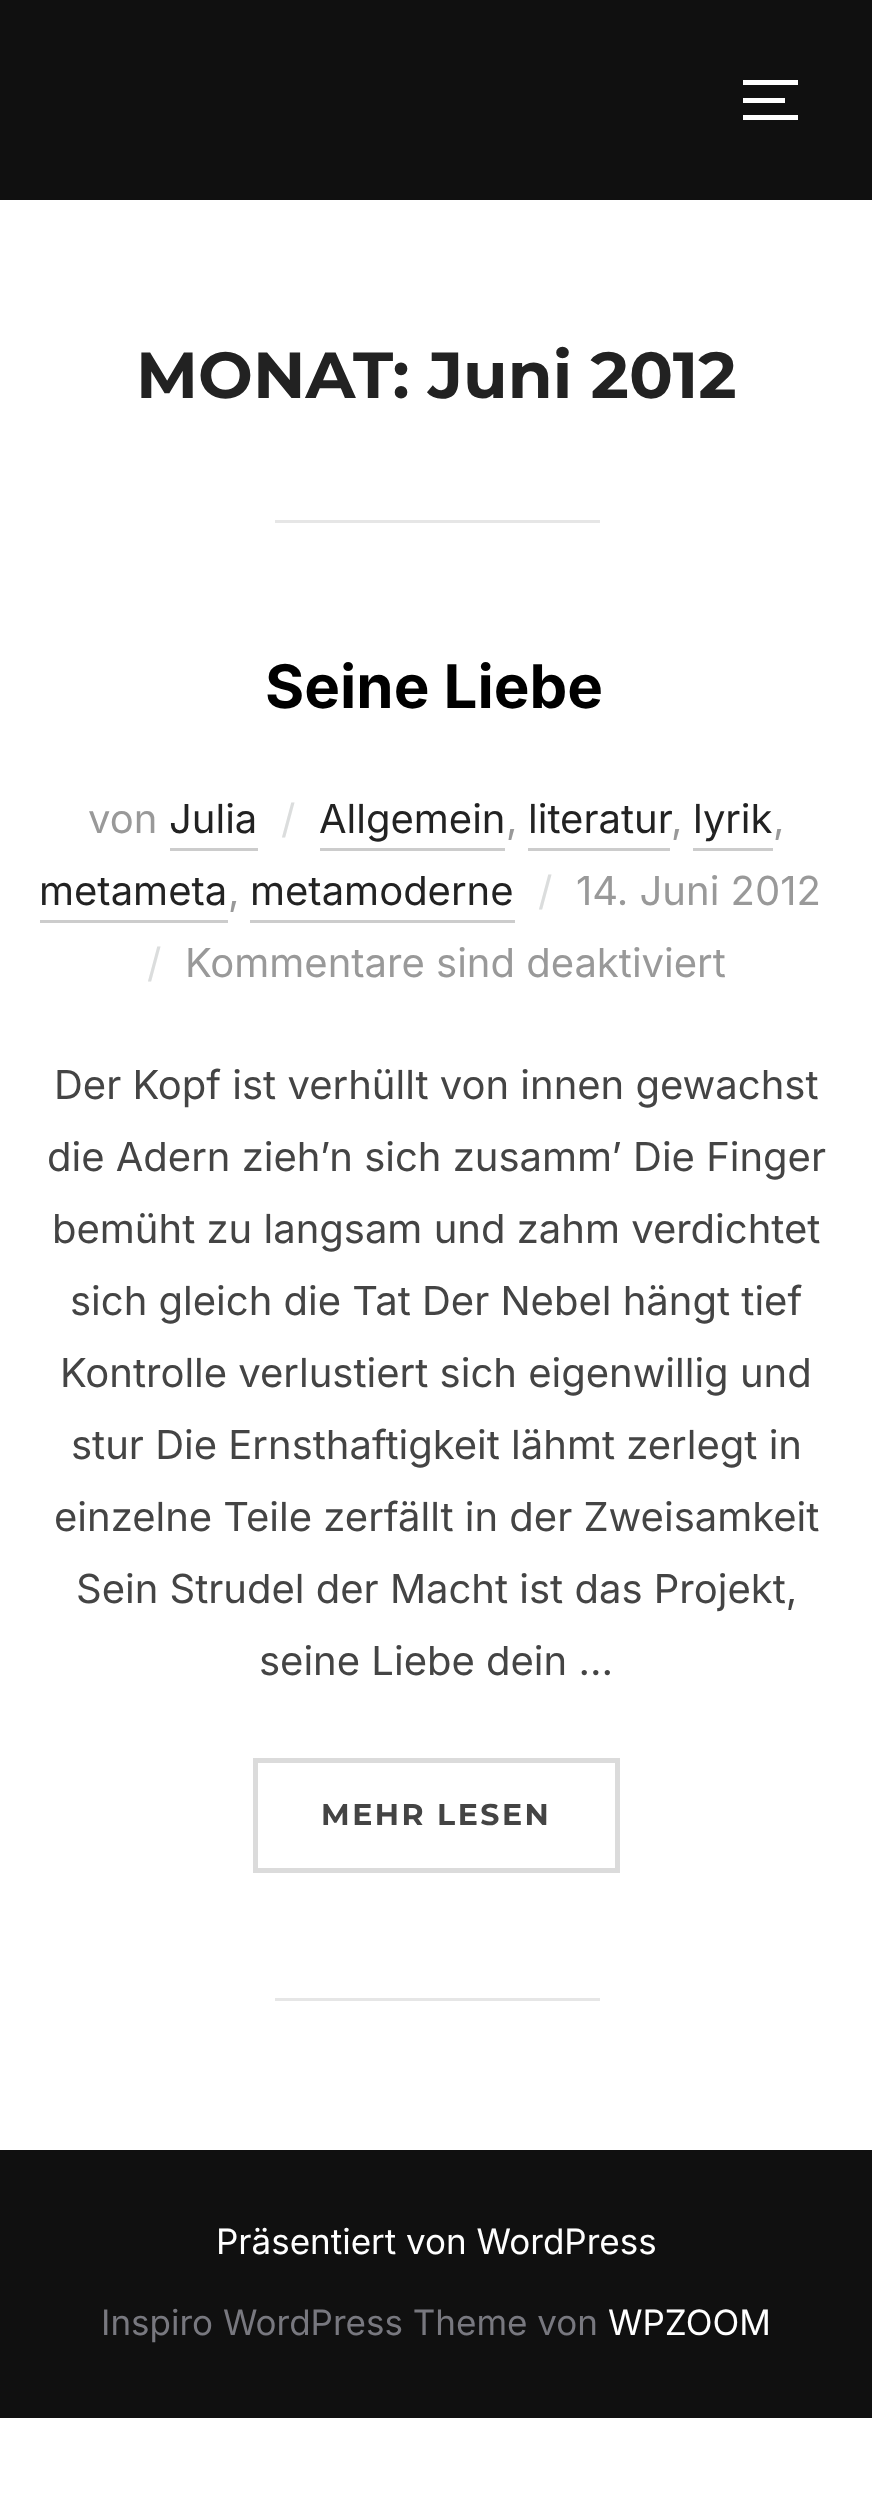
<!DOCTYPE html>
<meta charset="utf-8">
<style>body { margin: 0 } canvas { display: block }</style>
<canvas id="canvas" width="872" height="2507"></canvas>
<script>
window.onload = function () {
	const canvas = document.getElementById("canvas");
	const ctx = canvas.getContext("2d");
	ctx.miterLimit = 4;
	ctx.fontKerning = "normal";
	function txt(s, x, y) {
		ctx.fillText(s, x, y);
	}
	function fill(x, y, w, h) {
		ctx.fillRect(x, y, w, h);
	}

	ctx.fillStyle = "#FFFFFF";
	fill(0, 0, 872, 2507);
	ctx.fillStyle = "#101010";
	fill(0, 0, 872, 200);
	ctx.fillStyle = "#FFFFFF";
	fill(743, 80, 55, 5);
	fill(743, 98, 42, 5);
	fill(743, 115, 55, 5);
	ctx.fillStyle = "#E6E6E6";
	fill(275, 520, 325, 3);
	ctx.fillStyle = "#CCCCCC";
	fill(170, 848, 88, 3);
	fill(320, 848, 185, 3);
	fill(528, 848, 142, 3);
	fill(693, 848, 80, 3);
	fill(40, 920, 188, 3);
	fill(250, 920, 265, 3);
	ctx.strokeStyle = "#DBDBDB";
	ctx.lineWidth = 5;
	ctx.strokeRect(255.5, 1760.5, 362, 110);
	ctx.fillStyle = "#E6E6E6";
	fill(275, 1998, 325, 3);
	ctx.fillStyle = "#101010";
	fill(0, 2150, 872, 268);
	ctx.font = "bold 65px Montserrat";
	ctx.fillStyle = "#222222";
	txt("MONAT: Juni 2012", 136, 398);
	ctx.font = "bold 60px Inter";
	ctx.fillStyle = "#000000";
	txt("Seine Liebe", 265, 708);
	ctx.font = "40px Inter";
	ctx.fillStyle = "#999999";
	txt("von", 88, 833);
	ctx.fillStyle = "#222222";
	txt("Julia", 169, 833);
	ctx.fillStyle = "#DBDDDD";
	txt("/", 281, 833);
	ctx.fillStyle = "#222222";
	txt("Allgemein", 319, 833);
	ctx.fillStyle = "#999999";
	txt(",", 506, 833);
	ctx.fillStyle = "#222222";
	txt("literatur", 528, 833);
	ctx.fillStyle = "#999999";
	txt(",", 671, 833);
	ctx.fillStyle = "#222222";
	txt("lyrik", 693, 833);
	ctx.fillStyle = "#999999";
	txt(",", 773, 833);
	ctx.fillStyle = "#222222";
	txt("metameta", 39, 905);
	ctx.fillStyle = "#999999";
	txt(",", 228, 905);
	ctx.fillStyle = "#222222";
	txt("metamoderne", 250, 905);
	ctx.fillStyle = "#DBDDDD";
	txt("/", 538, 905);
	ctx.fillStyle = "#999999";
	txt("14. Juni 2012", 576, 905);
	ctx.fillStyle = "#DBDDDD";
	txt("/", 147, 977);
	ctx.fillStyle = "#999999";
	txt("Kommentare sind deaktiviert", 185, 977);
	ctx.fillStyle = "#444444";
	txt("Der Kopf ist verhüllt von innen gewachst", 54, 1099);
	txt("die Adern zieh’n sich zusamm’ Die Finger", 47, 1171);
	txt("bemüht zu langsam und zahm verdichtet", 52, 1243);
	txt("sich gleich die Tat Der Nebel hängt tief", 70, 1315);
	txt("Kontrolle verlustiert sich eigenwillig und", 60, 1387);
	txt("stur Die Ernsthaftigkeit lähmt zerlegt in", 71, 1459);
	txt("einzelne Teile zerfällt in der Zweisamkeit", 54, 1531);
	txt("Sein Strudel der Macht ist das Projekt,", 76, 1603);
	txt("seine Liebe dein …", 259, 1675);
	ctx.letterSpacing = "2.5px";
	ctx.font = "bold 30px Montserrat";
	txt("MEHR LESEN", 321, 1825);
	ctx.letterSpacing = "0px";
	ctx.font = "35px Inter";
	ctx.fillStyle = "#FFFFFF";
	txt("Präsentiert von WordPress", 216, 2254);
	ctx.fillStyle = "#78787F";
	txt("Inspiro WordPress Theme von", 101, 2335);
	ctx.fillStyle = "#FFFFFF";
	txt("WPZOOM", 608, 2335);
};
</script>
